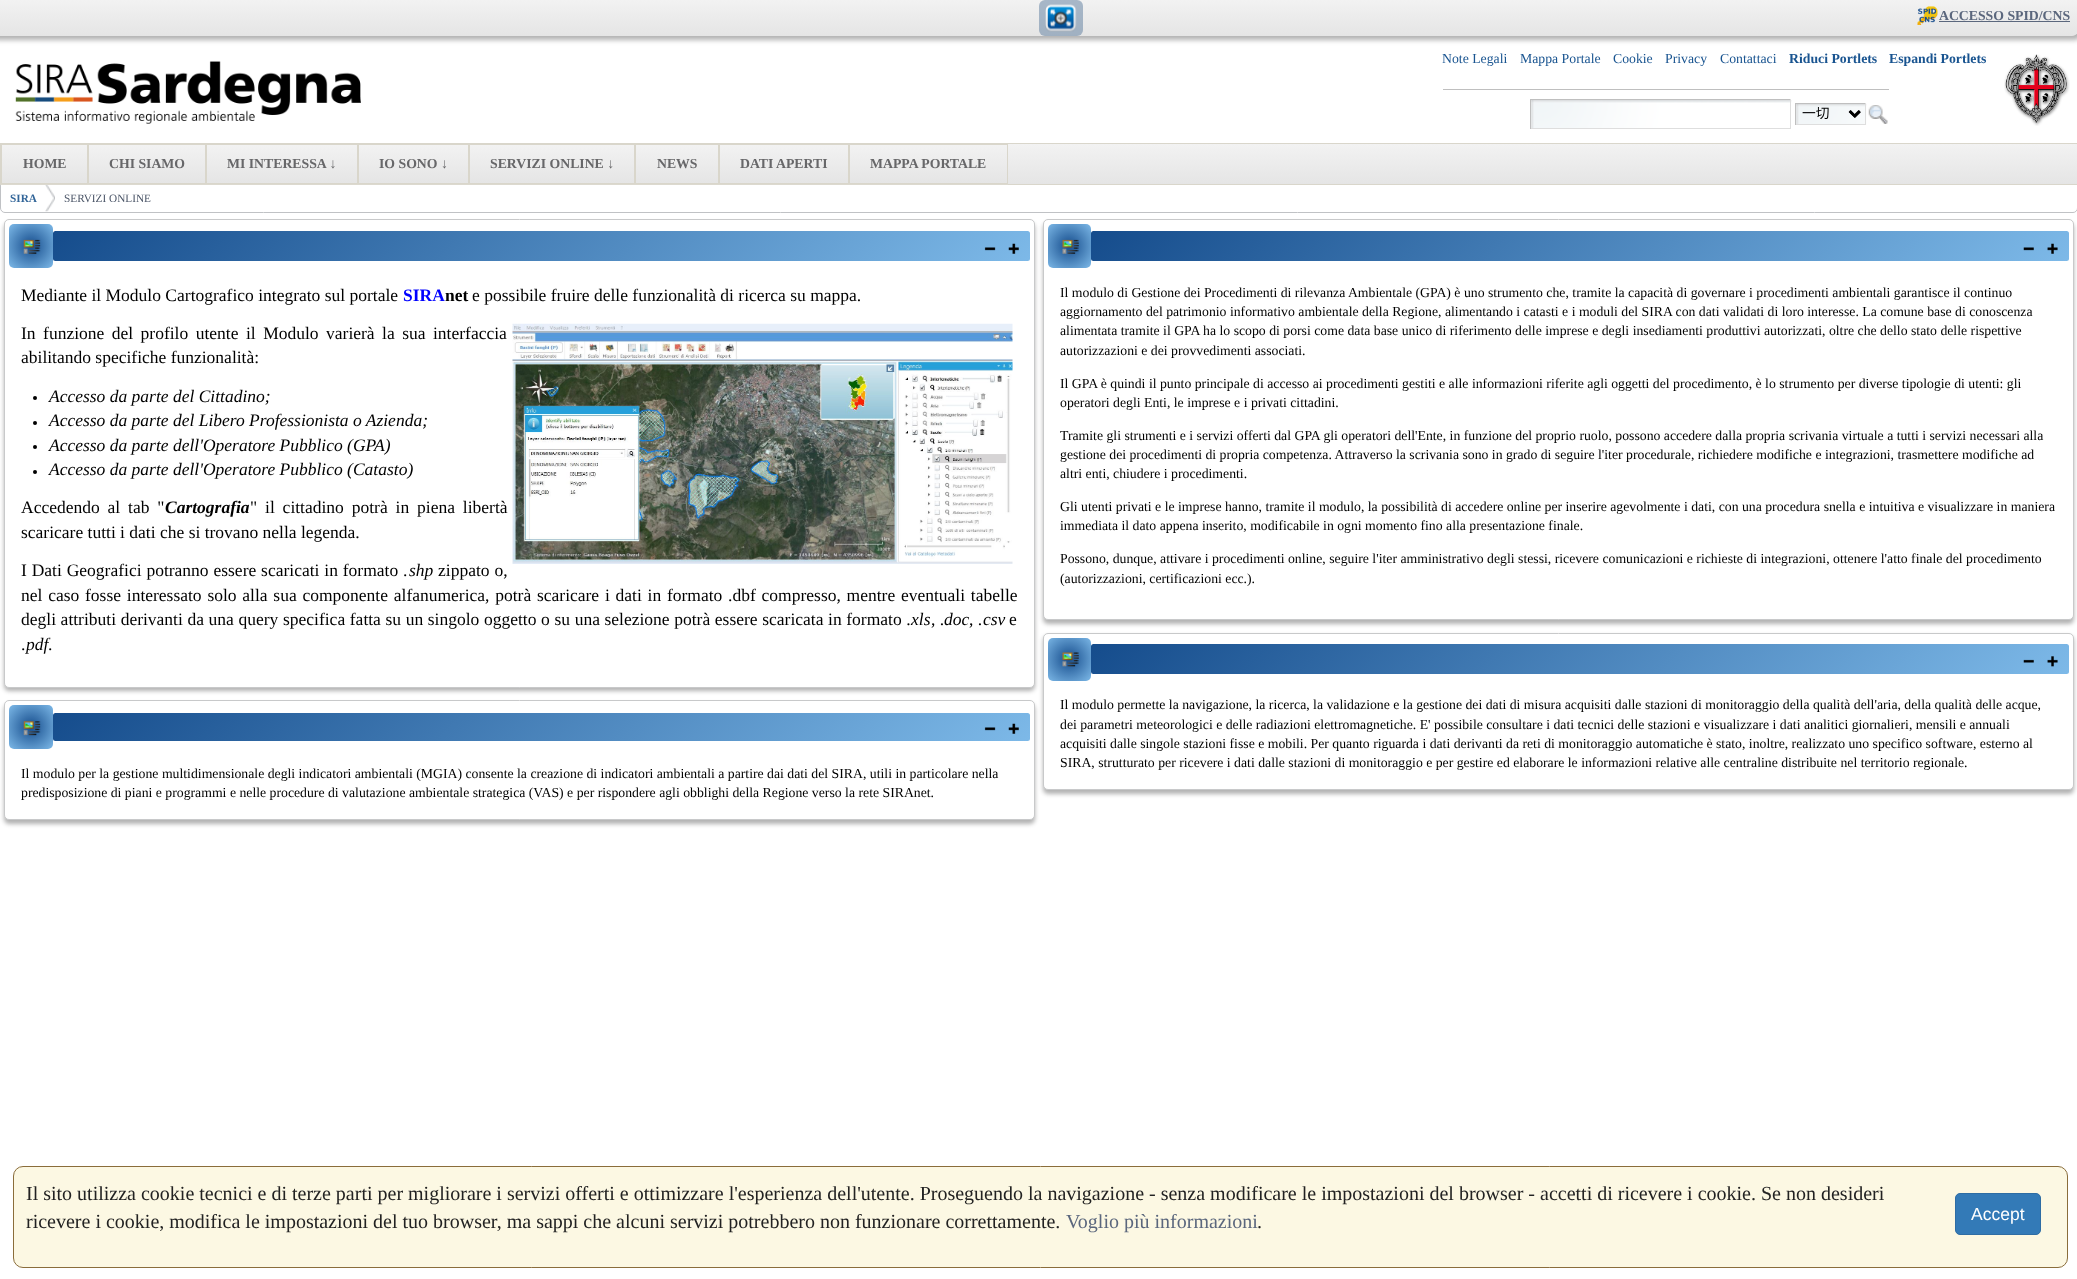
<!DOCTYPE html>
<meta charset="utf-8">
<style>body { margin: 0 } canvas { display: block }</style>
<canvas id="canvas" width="2077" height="1279"></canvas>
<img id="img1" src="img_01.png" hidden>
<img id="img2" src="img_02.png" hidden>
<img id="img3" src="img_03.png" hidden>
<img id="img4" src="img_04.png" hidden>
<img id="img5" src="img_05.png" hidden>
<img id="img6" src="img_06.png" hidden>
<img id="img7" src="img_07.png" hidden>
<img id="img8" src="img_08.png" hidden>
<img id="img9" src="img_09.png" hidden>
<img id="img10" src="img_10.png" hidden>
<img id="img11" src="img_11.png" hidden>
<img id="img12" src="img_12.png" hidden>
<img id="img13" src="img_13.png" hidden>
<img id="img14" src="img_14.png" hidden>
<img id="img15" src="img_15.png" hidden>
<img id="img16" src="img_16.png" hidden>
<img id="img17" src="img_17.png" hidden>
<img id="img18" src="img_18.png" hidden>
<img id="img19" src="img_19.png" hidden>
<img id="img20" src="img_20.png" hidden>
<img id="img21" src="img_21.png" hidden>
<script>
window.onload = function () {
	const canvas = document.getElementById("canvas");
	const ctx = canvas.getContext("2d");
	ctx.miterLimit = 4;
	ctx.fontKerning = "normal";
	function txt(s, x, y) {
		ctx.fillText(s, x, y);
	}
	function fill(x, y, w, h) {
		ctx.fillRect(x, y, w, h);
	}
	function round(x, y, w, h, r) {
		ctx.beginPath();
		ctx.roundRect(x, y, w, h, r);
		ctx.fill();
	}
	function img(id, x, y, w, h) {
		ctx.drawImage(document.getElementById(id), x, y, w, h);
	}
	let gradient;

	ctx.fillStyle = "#FFFFFF";
	fill(0, 0, 2077, 1279);
	ctx.fillStyle = "rgba(0, 0, 0, 0.3)";
	ctx.filter = "blur(2.5px)";
	ctx.beginPath();
	ctx.roundRect(-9, 4, 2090, 36, 6);
	ctx.fill();
	ctx.filter = "none";
	gradient = ctx.createLinearGradient(1033, 0, 1033, 36);
	gradient.addColorStop(0, "#F2F2F2");
	gradient.addColorStop(1, "#E5E5E5");
	ctx.fillStyle = gradient;
	ctx.beginPath();
	ctx.moveTo(-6, 0);
	ctx.lineTo(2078, 0);
	ctx.lineTo(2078, 30);
	ctx.bezierCurveTo(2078, 33.5, 2075.5, 36, 2072, 36);
	ctx.lineTo(0, 36);
	ctx.bezierCurveTo(-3.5, 36, -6, 33.5, -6, 30);
	ctx.closePath();
	ctx.fill();
	ctx.fillStyle = "rgba(92, 124, 157, 0.5)";
	round(1039, 0, 44, 36, 6);
	img("img1", 1045, 4, 32, 28);
	img("img2", 1917, 6, 21, 19);
	ctx.fillStyle = "#5B677D";
	fill(1939, 21, 131, 1);
	img("img3", 15, 61, 346, 63);
	ctx.fillStyle = "#BFBFBF";
	fill(1443, 89, 446, 1);
	img("img4", 1531, 100, 261, 29);
	fill(1530, 99, 261, 1);
	ctx.fillStyle = "#DEDEDE";
	fill(1790, 99, 1, 30);
	fill(1530, 128, 261, 1);
	ctx.fillStyle = "#BFBFBF";
	fill(1530, 99, 1, 30);
	img("img5", 1796, 103, 71, 22);
	fill(1795, 103, 71, 1);
	ctx.fillStyle = "#DEDEDE";
	fill(1865, 103, 1, 22);
	fill(1795, 124, 71, 1);
	ctx.fillStyle = "#BFBFBF";
	fill(1795, 103, 1, 22);
	ctx.beginPath();
	ctx.moveTo(1849.5, 111);
	ctx.lineTo(1854.5, 116);
	ctx.lineTo(1859.5, 111);
	ctx.strokeStyle = "#000000";
	ctx.lineWidth = 2.5;
	ctx.stroke();
	img("img6", 1868, 105, 20, 19);
	img("img7", 2004, 54, 66, 72);
	ctx.beginPath();
	ctx.roundRect(0.5, 155.5, 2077, 57, 4.5);
	ctx.strokeStyle = "#C0C2C5";
	ctx.lineWidth = 1;
	ctx.stroke();
	img("img8", 45, 185, 10, 27);
	ctx.fillStyle = "rgba(255, 255, 255, 0.07)";
	ctx.beginPath();
	ctx.moveTo(0, 185);
	ctx.lineTo(0, 186);
	ctx.lineTo(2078, 186);
	ctx.lineTo(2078, 144);
	ctx.lineTo(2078, 185);
	ctx.closePath();
	ctx.fill();
	gradient = ctx.createLinearGradient(1039, 144, 1039, 184);
	gradient.addColorStop(0, "#F2F2F2");
	gradient.addColorStop(1, "#E5E5E5");
	ctx.fillStyle = gradient;
	fill(1008, 144, 1069, 40);
	ctx.strokeStyle = "#D9D6CB";
	ctx.strokeRect(0.5, 143.5, 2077, 41);
	ctx.fillStyle = "#DCD9CF";
	ctx.beginPath();
	ctx.moveTo(1, 145);
	ctx.lineTo(1, 185);
	ctx.lineTo(88, 185);
	ctx.lineTo(88, 145);
	ctx.lineTo(88, 184);
	ctx.lineTo(1, 184);
	ctx.closePath();
	ctx.fill();
	gradient = ctx.createLinearGradient(44, 145, 44, 183);
	gradient.addColorStop(0, "#F2F2F2");
	gradient.addColorStop(1, "#E5E5E5");
	ctx.fillStyle = gradient;
	fill(2, 145, 85, 38);
	ctx.strokeRect(1.5, 144.5, 86, 39);
	ctx.fillStyle = "#DCD9CF";
	fill(88, 184, 118, 1);
	gradient = ctx.createLinearGradient(147, 145, 147, 183);
	gradient.addColorStop(0, "#F2F2F2");
	gradient.addColorStop(1, "#E5E5E5");
	ctx.fillStyle = gradient;
	fill(89, 145, 116, 38);
	ctx.strokeRect(88.5, 144.5, 117, 39);
	ctx.fillStyle = "#DCD9CF";
	ctx.beginPath();
	ctx.moveTo(206, 145);
	ctx.lineTo(206, 185);
	ctx.lineTo(358, 185);
	ctx.lineTo(358, 145);
	ctx.lineTo(358, 184);
	ctx.lineTo(206, 184);
	ctx.closePath();
	ctx.fill();
	gradient = ctx.createLinearGradient(282, 145, 282, 183);
	gradient.addColorStop(0, "#F2F2F2");
	gradient.addColorStop(1, "#E5E5E5");
	ctx.fillStyle = gradient;
	fill(207, 145, 150, 38);
	ctx.strokeRect(206.5, 144.5, 151, 39);
	ctx.fillStyle = "#DCD9CF";
	ctx.beginPath();
	ctx.moveTo(358, 184);
	ctx.lineTo(358, 185);
	ctx.lineTo(469, 185);
	ctx.lineTo(469, 145);
	ctx.lineTo(469, 184);
	ctx.closePath();
	ctx.fill();
	gradient = ctx.createLinearGradient(413, 145, 413, 183);
	gradient.addColorStop(0, "#F2F2F2");
	gradient.addColorStop(1, "#E5E5E5");
	ctx.fillStyle = gradient;
	fill(359, 145, 109, 38);
	ctx.strokeRect(358.5, 144.5, 110, 39);
	ctx.fillStyle = "#DCD9CF";
	fill(469, 184, 166, 1);
	gradient = ctx.createLinearGradient(552, 145, 552, 183);
	gradient.addColorStop(0, "#F2F2F2");
	gradient.addColorStop(1, "#E5E5E5");
	ctx.fillStyle = gradient;
	fill(470, 145, 164, 38);
	ctx.strokeRect(469.5, 144.5, 165, 39);
	ctx.fillStyle = "#DCD9CF";
	ctx.beginPath();
	ctx.moveTo(635, 184);
	ctx.lineTo(635, 185);
	ctx.lineTo(719, 185);
	ctx.lineTo(719, 145);
	ctx.lineTo(719, 184);
	ctx.closePath();
	ctx.fill();
	gradient = ctx.createLinearGradient(677, 145, 677, 183);
	gradient.addColorStop(0, "#F2F2F2");
	gradient.addColorStop(1, "#E5E5E5");
	ctx.fillStyle = gradient;
	fill(636, 145, 82, 38);
	ctx.strokeRect(635.5, 144.5, 83, 39);
	ctx.fillStyle = "#DCD9CF";
	ctx.beginPath();
	ctx.moveTo(719, 184);
	ctx.lineTo(719, 185);
	ctx.lineTo(849, 185);
	ctx.lineTo(849, 145);
	ctx.lineTo(849, 184);
	ctx.closePath();
	ctx.fill();
	gradient = ctx.createLinearGradient(784, 145, 784, 183);
	gradient.addColorStop(0, "#F2F2F2");
	gradient.addColorStop(1, "#E5E5E5");
	ctx.fillStyle = gradient;
	fill(720, 145, 128, 38);
	ctx.strokeRect(719.5, 144.5, 129, 39);
	ctx.fillStyle = "#DCD9CF";
	ctx.beginPath();
	ctx.moveTo(849, 184);
	ctx.lineTo(849, 185);
	ctx.lineTo(1008, 185);
	ctx.lineTo(1008, 145);
	ctx.lineTo(1008, 184);
	ctx.closePath();
	ctx.fill();
	gradient = ctx.createLinearGradient(928, 145, 928, 183);
	gradient.addColorStop(0, "#F2F2F2");
	gradient.addColorStop(1, "#E5E5E5");
	ctx.fillStyle = gradient;
	fill(850, 145, 157, 38);
	ctx.strokeRect(849.5, 144.5, 158, 39);
	ctx.fillStyle = "rgba(0, 0, 0, 0.3)";
	ctx.filter = "blur(2px)";
	ctx.beginPath();
	ctx.roundRect(4, 223, 1031, 468, 5);
	ctx.fill();
	ctx.filter = "none";
	ctx.fillStyle = "#FFFFFF";
	ctx.beginPath();
	ctx.roundRect(4.5, 219.5, 1030, 468, 4.5);
	ctx.fill();
	ctx.strokeStyle = "#C8C9CA";
	ctx.stroke();
	gradient = ctx.createRadialGradient(31, 246, 0, 31, 246, 31);
	gradient.addColorStop(0, "#154C8C");
	gradient.addColorStop(1, "#7DB9E8");
	ctx.fillStyle = gradient;
	round(9, 224, 44, 44, 5);
	img("img9", 23, 239, 18, 15);
	gradient = ctx.createLinearGradient(289, -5.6, 793, 498);
	gradient.addColorStop(0, "#154C8C");
	gradient.addColorStop(1, "#7DB9E8");
	ctx.fillStyle = gradient;
	round(53, 231, 977, 30, 2.5);
	img("img10", 984, 247, 12, 4);
	img("img11", 1008, 243, 11, 11);
	img("img12", 512, 323, 501, 241);
	ctx.fillStyle = "#000000";
	ctx.beginPath();
	ctx.arc(35, 398, 2, 0, Math.PI * 2);
	ctx.fill();
	ctx.beginPath();
	ctx.arc(35, 423, 2, 0, Math.PI * 2);
	ctx.fill();
	ctx.beginPath();
	ctx.arc(35, 447, 2, 0, Math.PI * 2);
	ctx.fill();
	ctx.beginPath();
	ctx.arc(35, 472, 2, 0, Math.PI * 2);
	ctx.fill();
	ctx.fillStyle = "rgba(0, 0, 0, 0.3)";
	ctx.filter = "blur(2px)";
	ctx.beginPath();
	ctx.roundRect(4, 704, 1031, 120, 5);
	ctx.fill();
	ctx.filter = "none";
	ctx.fillStyle = "#FFFFFF";
	ctx.beginPath();
	ctx.roundRect(4.5, 700.5, 1030, 119, 4.5);
	ctx.fill();
	ctx.stroke();
	gradient = ctx.createRadialGradient(31, 727, 0, 31, 727, 31);
	gradient.addColorStop(0, "#154C8C");
	gradient.addColorStop(1, "#7DB9E8");
	ctx.fillStyle = gradient;
	round(9, 705, 44, 44, 5);
	img("img13", 23, 721, 18, 15);
	gradient = ctx.createLinearGradient(290, 475, 793, 978);
	gradient.addColorStop(0, "#154C8C");
	gradient.addColorStop(1, "#7DB9E8");
	ctx.fillStyle = gradient;
	round(53, 713, 977, 28, 2.5);
	img("img14", 984, 727, 12, 4);
	img("img15", 1008, 723, 11, 11);
	ctx.fillStyle = "rgba(0, 0, 0, 0.3)";
	ctx.filter = "blur(2px)";
	ctx.beginPath();
	ctx.roundRect(1043, 223, 1031, 401, 5);
	ctx.fill();
	ctx.filter = "none";
	ctx.fillStyle = "#FFFFFF";
	ctx.beginPath();
	ctx.roundRect(1043.5, 219.5, 1030, 400, 4.5);
	ctx.fill();
	ctx.stroke();
	gradient = ctx.createRadialGradient(1069, 246, 0, 1069, 246, 31);
	gradient.addColorStop(0, "#154C8C");
	gradient.addColorStop(1, "#7DB9E8");
	ctx.fillStyle = gradient;
	round(1048, 224, 43, 44, 5);
	img("img16", 1062, 239, 17, 15);
	gradient = ctx.createLinearGradient(1328, -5.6, 1832, 498);
	gradient.addColorStop(0, "#154C8C");
	gradient.addColorStop(1, "#7DB9E8");
	ctx.fillStyle = gradient;
	round(1091, 231, 978, 30, 2.5);
	img("img17", 2023, 247, 11, 4);
	img("img18", 2047, 243, 11, 11);
	ctx.fillStyle = "rgba(0, 0, 0, 0.3)";
	ctx.filter = "blur(2px)";
	ctx.beginPath();
	ctx.roundRect(1043, 636, 1031, 158, 5);
	ctx.fill();
	ctx.filter = "none";
	ctx.fillStyle = "#FFFFFF";
	ctx.beginPath();
	ctx.roundRect(1043.5, 633.5, 1030, 156, 4.5);
	ctx.fill();
	ctx.stroke();
	gradient = ctx.createRadialGradient(1069, 659, 0, 1069, 659, 31);
	gradient.addColorStop(0, "#154C8C");
	gradient.addColorStop(1, "#7DB9E8");
	ctx.fillStyle = gradient;
	round(1048, 638, 43, 43, 5);
	img("img19", 1062, 652, 17, 15);
	gradient = ctx.createLinearGradient(1328, 407, 1832, 911);
	gradient.addColorStop(0, "#154C8C");
	gradient.addColorStop(1, "#7DB9E8");
	ctx.fillStyle = gradient;
	round(1091, 644, 978, 30, 2.5);
	img("img20", 2023, 659, 11, 4);
	img("img21", 2047, 656, 11, 11);
	ctx.fillStyle = "#FCF8E3";
	ctx.beginPath();
	ctx.roundRect(13.5, 1166.5, 2054, 101, 9.5);
	ctx.fill();
	ctx.strokeStyle = "#8A6D3B";
	ctx.stroke();
	ctx.fillStyle = "#337AB7";
	ctx.beginPath();
	ctx.roundRect(1955.5, 1193.5, 85, 41, 4.5);
	ctx.fill();
	ctx.strokeStyle = "#2E6DA4";
	ctx.stroke();
	ctx.font = "bold 13.75px Liberation Serif";
	ctx.fillStyle = "#5B677D";
	txt("ACCESSO SPID/CNS", 1939, 20);
	ctx.font = "13.75px Liberation Serif";
	ctx.fillStyle = "#195490";
	txt("Note Legali", 1442, 63);
	txt("Mappa Portale", 1520, 63);
	txt("Cookie", 1613, 63);
	txt("Privacy", 1665, 63);
	txt("Contattaci", 1720, 63);
	ctx.font = "bold 13.75px Liberation Serif";
	txt("Riduci Portlets", 1789, 63);
	txt("Espandi Portlets", 1889, 63);
	ctx.font = "13.75px Noto Sans CJK TC";
	ctx.fillStyle = "#000000";
	txt("一切", 1802, 118);
	ctx.font = "bold 13.75px Liberation Serif";
	ctx.fillStyle = "#676769";
	txt("HOME", 23, 168);
	txt("CHI SIAMO", 109, 168);
	txt("MI INTERESSA ↓", 227, 168);
	txt("IO SONO ↓", 379, 168);
	txt("SERVIZI ONLINE ↓", 490, 168);
	txt("NEWS", 657, 168);
	txt("DATI APERTI", 740, 168);
	txt("MAPPA PORTALE", 870, 168);
	ctx.font = "bold 11.25px Liberation Serif";
	ctx.fillStyle = "#336699";
	txt("SIRA", 10, 202);
	ctx.font = "11.25px Liberation Serif";
	ctx.fillStyle = "#4B5567";
	txt("SERVIZI ONLINE", 64, 202);
	ctx.font = "17.5px Liberation Serif";
	ctx.fillStyle = "#000000";
	txt("Mediante il Modulo Cartografico integrato sul portale", 21, 301);
	ctx.font = "bold 17.5px Liberation Serif";
	ctx.fillStyle = "#0000FF";
	txt("SIRA", 403, 301);
	ctx.fillStyle = "#000000";
	txt("net", 445, 301);
	ctx.font = "17.5px Liberation Serif";
	txt("e possibile fruire delle funzionalità di ricerca su mappa.", 472, 301);
	ctx.wordSpacing = "3.1px";
	txt("In funzione del profilo utente il Modulo varierà la sua interfaccia", 21, 339);
	ctx.wordSpacing = "0px";
	txt("abilitando specifiche funzionalità:", 21, 363);
	ctx.font = "italic 17.5px Liberation Serif";
	txt("Accesso da parte del Cittadino;", 49, 402);
	txt("Accesso da parte del Libero Professionista o Azienda;", 49, 426);
	txt("Accesso da parte dell'Operatore Pubblico (GPA)", 49, 451);
	txt("Accesso da parte dell'Operatore Pubblico (Catasto)", 49, 475);
	ctx.wordSpacing = "3.5px";
	ctx.font = "17.5px Liberation Serif";
	txt("Accedendo al tab \"", 21, 513);
	ctx.wordSpacing = "0px";
	ctx.font = "italic bold 17.5px Liberation Serif";
	txt("Cartografia", 165, 513);
	ctx.wordSpacing = "3.5px";
	ctx.font = "17.5px Liberation Serif";
	txt("\" il cittadino potrà in piena libertà", 250, 513);
	ctx.wordSpacing = "0px";
	txt("scaricare tutti i dati che si trovano nella legenda.", 21, 538);
	ctx.wordSpacing = "0.5px";
	txt("I Dati Geografici potranno essere scaricati in formato .", 21, 576);
	ctx.wordSpacing = "0px";
	ctx.font = "italic 17.5px Liberation Serif";
	txt("shp", 409, 576);
	ctx.wordSpacing = "0.5px";
	ctx.font = "17.5px Liberation Serif";
	txt("zippato o,", 438, 576);
	ctx.wordSpacing = "1.4px";
	txt("nel caso fosse interessato solo alla sua componente alfanumerica, potrà scaricare i dati in formato .dbf compresso, mentre eventuali tabelle", 21, 601);
	ctx.wordSpacing = "0.25px";
	txt("degli attributi derivanti da una query specifica fatta su un singolo oggetto o su una selezione potrà essere scaricata in formato .", 21, 625);
	ctx.wordSpacing = "0px";
	ctx.font = "italic 17.5px Liberation Serif";
	txt("xls", 911, 625);
	ctx.font = "17.5px Liberation Serif";
	txt(", .", 931, 625);
	ctx.font = "italic 17.5px Liberation Serif";
	txt("doc", 944, 625);
	ctx.font = "17.5px Liberation Serif";
	txt(", .", 969, 625);
	ctx.font = "italic 17.5px Liberation Serif";
	txt("csv", 983, 625);
	ctx.font = "17.5px Liberation Serif";
	txt("e", 1009, 625);
	txt(".", 21, 650);
	ctx.font = "italic 17.5px Liberation Serif";
	txt("pdf", 26, 650);
	ctx.font = "17.5px Liberation Serif";
	txt(".", 48, 650);
	ctx.font = "13.75px Liberation Serif";
	txt("Il modulo per la gestione multidimensionale degli indicatori ambientali (MGIA) consente la creazione di indicatori ambientali a partire dai dati del SIRA, utili in particolare nella", 21, 778);
	txt("predisposizione di piani e programmi e nelle procedure di valutazione ambientale strategica (VAS) e per rispondere agli obblighi della Regione verso la rete SIRAnet.", 21, 797);
	txt("Il modulo di Gestione dei Procedimenti di rilevanza Ambientale (GPA) è uno strumento che, tramite la capacità di governare i procedimenti ambientali garantisce il continuo", 1060, 297);
	txt("aggiornamento del patrimonio informativo ambientale della Regione, alimentando i catasti e i moduli del SIRA con dati validati di loro interesse. La comune base di conoscenza", 1060, 316);
	txt("alimentata tramite il GPA ha lo scopo di porsi come data base unico di riferimento delle imprese e degli insediamenti produttivi autorizzati, oltre che dello stato delle rispettive", 1060, 335);
	txt("autorizzazioni e dei provvedimenti associati.", 1060, 355);
	txt("Il GPA è quindi il punto principale di accesso ai procedimenti gestiti e alle informazioni riferite agli oggetti del procedimento, è lo strumento per diverse tipologie di utenti: gli", 1060, 388);
	txt("operatori degli Enti, le imprese e i privati cittadini.", 1060, 407);
	txt("Tramite gli strumenti e i servizi offerti dal GPA gli operatori dell'Ente, in funzione del proprio ruolo, possono accedere dalla propria scrivania virtuale a tutti i servizi necessari alla", 1060, 440);
	txt("gestione dei procedimenti di propria competenza. Attraverso la scrivania sono in grado di seguire l'iter procedurale, richiedere modifiche e integrazioni, trasmettere modifiche ad", 1060, 459);
	txt("altri enti, chiudere i procedimenti.", 1060, 478);
	txt("Gli utenti privati e le imprese hanno, tramite il modulo, la possibilità di accedere online per inserire agevolmente i dati, con una procedura snella e intuitiva e visualizzare in maniera", 1060, 511);
	txt("immediata il dato appena inserito, modificabile in ogni momento fino alla presentazione finale.", 1060, 530);
	txt("Possono, dunque, attivare i procedimenti online, seguire l'iter amministrativo degli stessi, ricevere comunicazioni e richieste di integrazioni, ottenere l'atto finale del procedimento", 1060, 563);
	txt("(autorizzazioni, certificazioni ecc.).", 1060, 583);
	txt("Il modulo permette la navigazione, la ricerca, la validazione e la gestione dei dati di misura acquisiti dalle stazioni di monitoraggio della qualità dell'aria, della qualità delle acque,", 1060, 709);
	txt("dei parametri meteorologici e delle radiazioni elettromagnetiche. E' possibile consultare i dati tecnici delle stazioni e visualizzare i dati analitici giornalieri, mensili e annuali", 1060, 729);
	txt("acquisiti dalle singole stazioni fisse e mobili. Per quanto riguarda i dati derivanti da reti di monitoraggio automatiche è stato, inoltre, realizzato uno specifico software, esterno al", 1060, 748);
	txt("SIRA, strutturato per ricevere i dati dalle stazioni di monitoraggio e per gestire ed elaborare le informazioni relative alle centraline distribuite nel territorio regionale.", 1060, 767);
	ctx.font = "20px Liberation Serif";
	ctx.fillStyle = "#222222";
	txt("Il sito utilizza cookie tecnici e di terze parti per migliorare i servizi offerti e ottimizzare l'esperienza dell'utente. Proseguendo la navigazione - senza modificare le impostazioni del browser - accetti di ricevere i cookie. Se non desideri", 26, 1200);
	txt("ricevere i cookie, modifica le impostazioni del tuo browser, ma sappi che alcuni servizi potrebbero non funzionare correttamente.", 26, 1228);
	ctx.fillStyle = "#5B677D";
	txt("Voglio più informazioni", 1066, 1228);
	ctx.fillStyle = "#222222";
	txt(".", 1257, 1228);
	ctx.font = "17.5px Liberation Sans";
	ctx.fillStyle = "#FFFFFF";
	txt("Accept", 1971, 1220);
};
</script>
